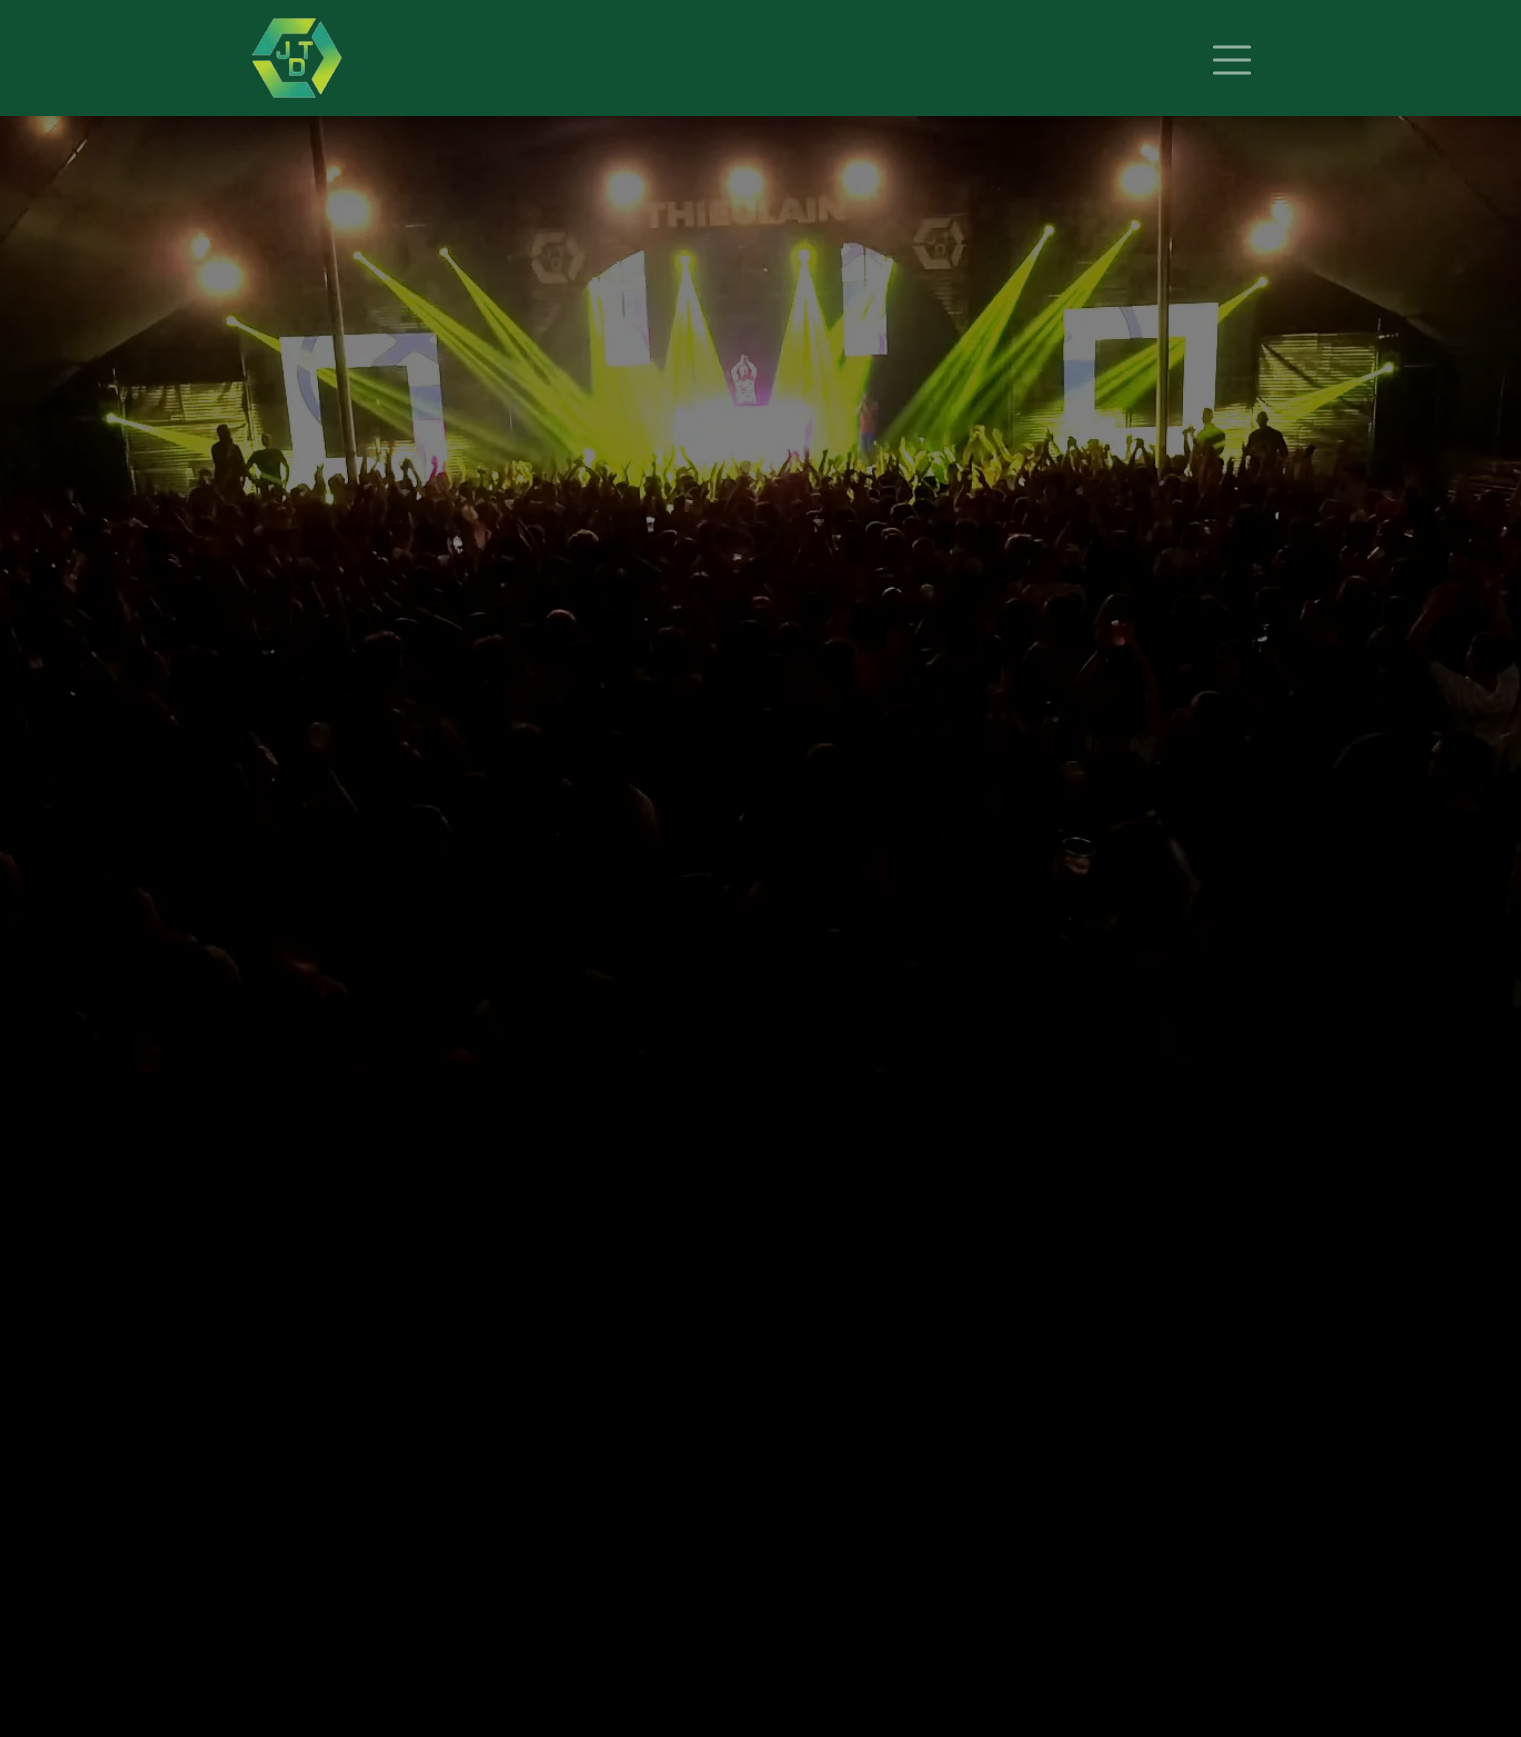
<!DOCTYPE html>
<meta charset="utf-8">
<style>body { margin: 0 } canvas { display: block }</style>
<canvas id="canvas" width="1521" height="1737"></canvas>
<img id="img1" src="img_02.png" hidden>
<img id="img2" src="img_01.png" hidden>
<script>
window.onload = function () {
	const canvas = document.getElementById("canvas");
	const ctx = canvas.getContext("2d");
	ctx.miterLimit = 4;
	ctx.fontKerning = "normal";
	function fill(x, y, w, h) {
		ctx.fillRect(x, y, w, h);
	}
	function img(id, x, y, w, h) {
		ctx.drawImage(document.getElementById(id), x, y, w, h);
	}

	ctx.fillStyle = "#FFFFFF";
	fill(0, 0, 1521, 1737);
	img("img1", 0, 116, 1521, 956);
	ctx.fillStyle = "rgba(0, 0, 0, 0.1)";
	ctx.filter = "blur(3px)";
	ctx.beginPath();
	ctx.rect(0, 2, 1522, 116);
	ctx.fill();
	ctx.filter = "none";
	ctx.fillStyle = "#0F5132";
	fill(0, 0, 1521, 116);
	img("img2", 252, 18, 90, 80);
	ctx.beginPath();
	ctx.moveTo(1214.5, 47);
	ctx.lineTo(1249.5, 47);
	ctx.moveTo(1214.5, 60);
	ctx.lineTo(1249.5, 60);
	ctx.moveTo(1214.5, 73);
	ctx.lineTo(1249.5, 73);
	ctx.strokeStyle = "#93B1A3";
	ctx.lineWidth = 3.2;
	ctx.lineCap = "round";
	ctx.stroke();
	ctx.fillStyle = "#000000";
	fill(0, 1072, 1521, 665);
};
</script>
